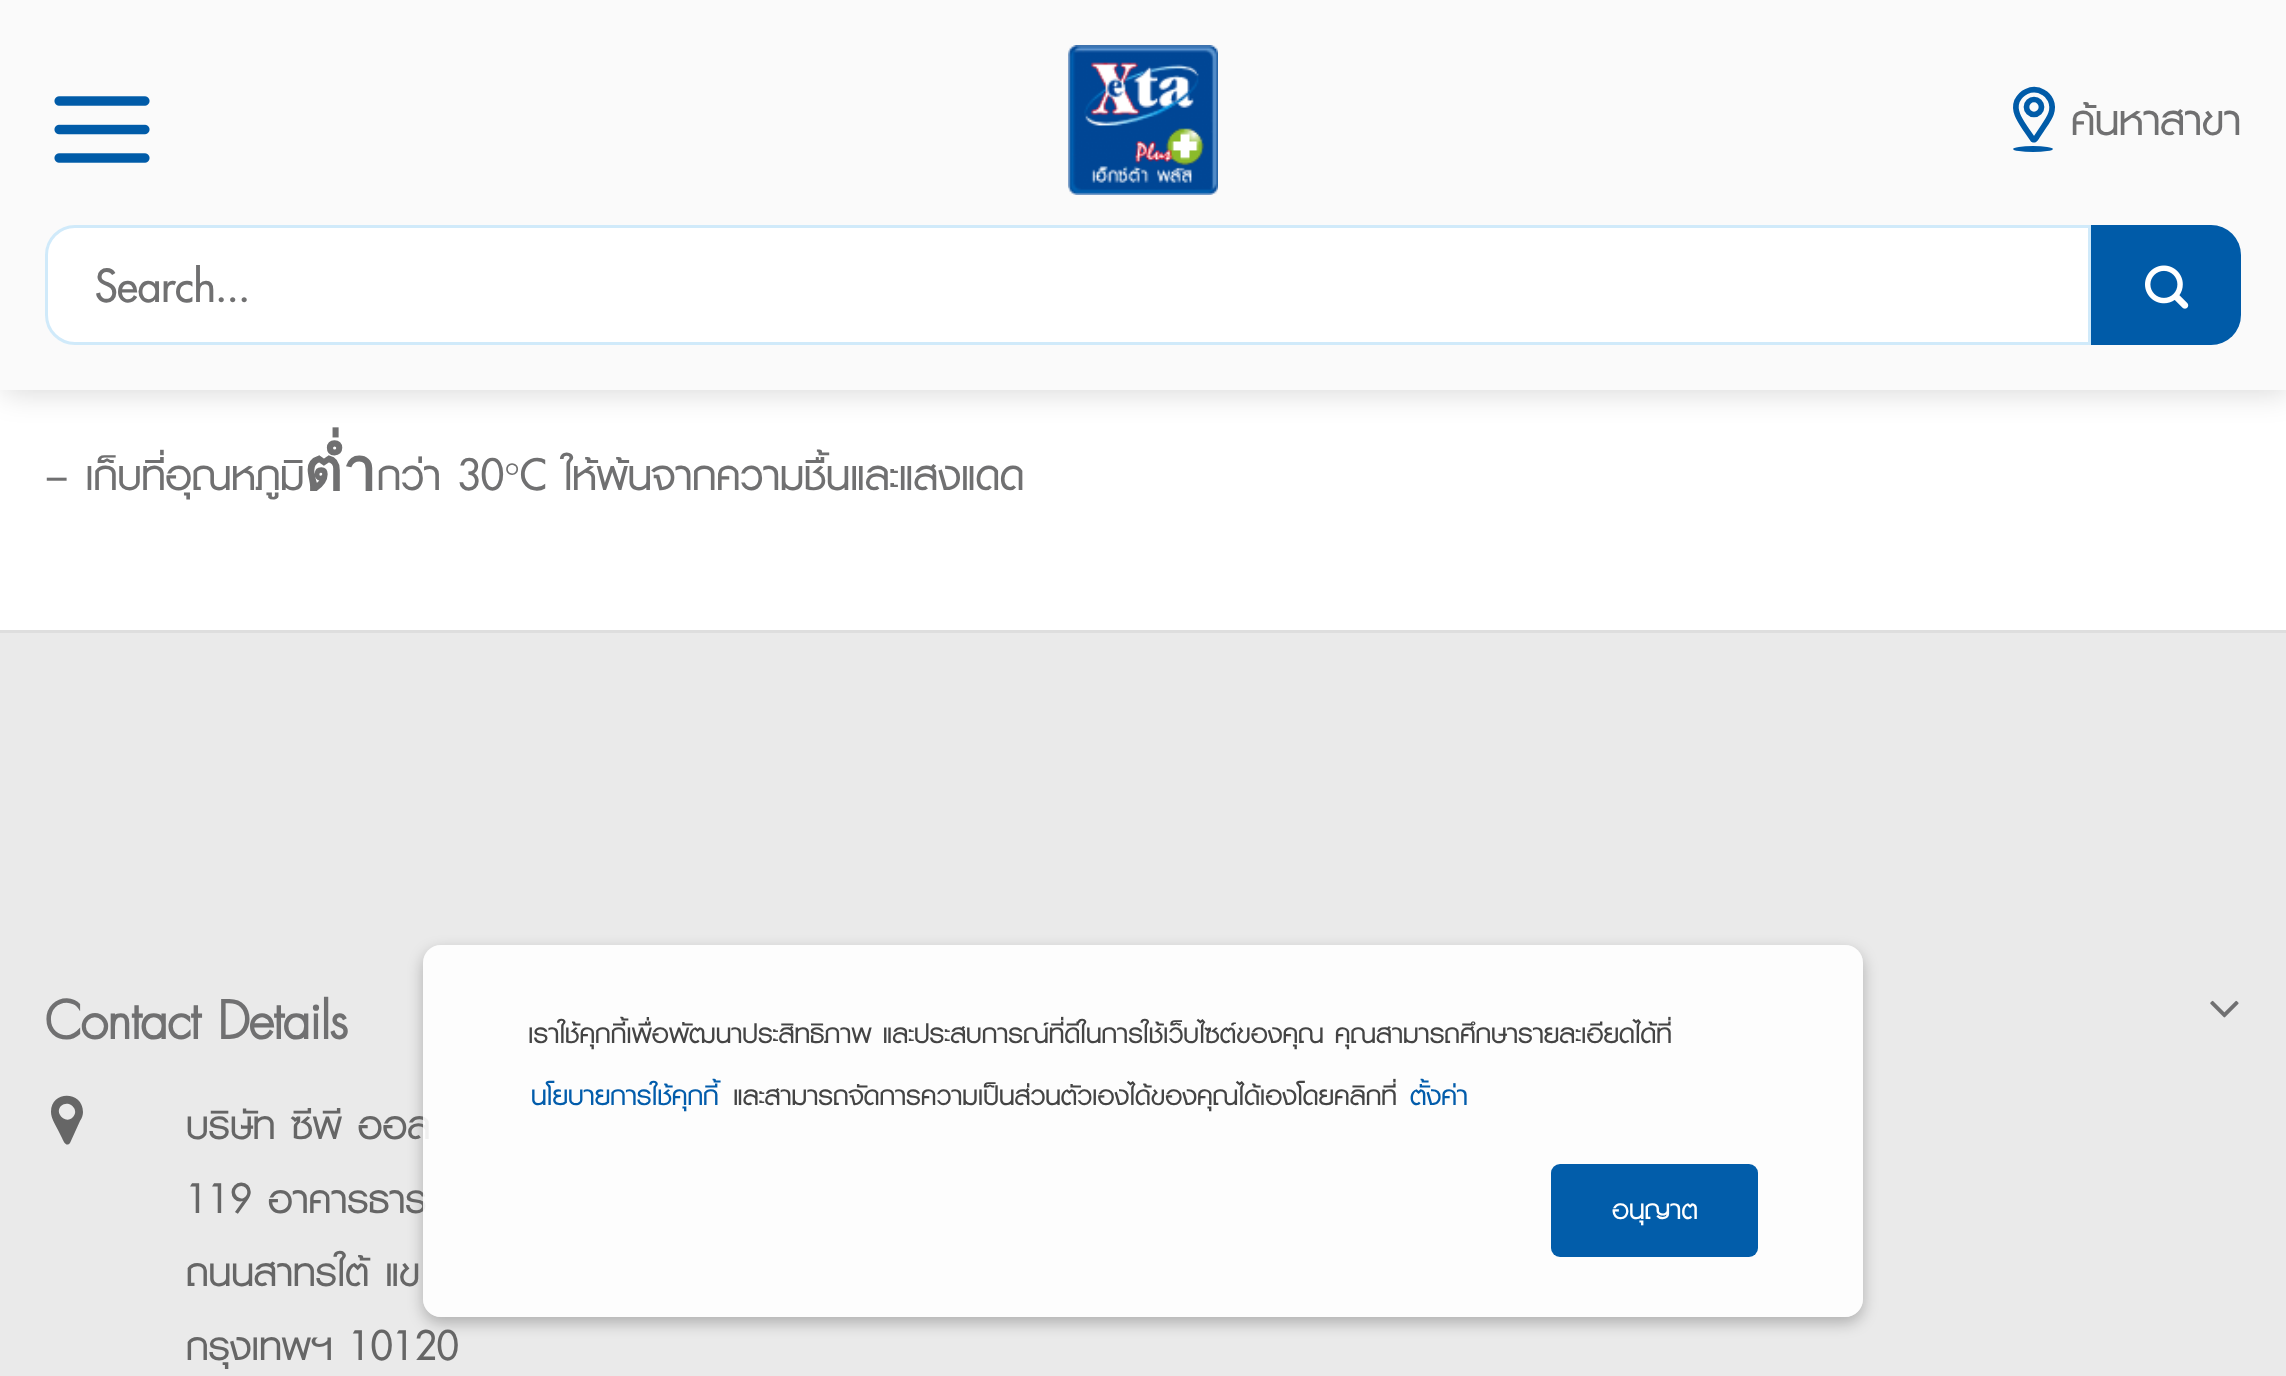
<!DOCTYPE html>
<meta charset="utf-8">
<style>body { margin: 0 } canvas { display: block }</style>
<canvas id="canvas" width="2286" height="1376"></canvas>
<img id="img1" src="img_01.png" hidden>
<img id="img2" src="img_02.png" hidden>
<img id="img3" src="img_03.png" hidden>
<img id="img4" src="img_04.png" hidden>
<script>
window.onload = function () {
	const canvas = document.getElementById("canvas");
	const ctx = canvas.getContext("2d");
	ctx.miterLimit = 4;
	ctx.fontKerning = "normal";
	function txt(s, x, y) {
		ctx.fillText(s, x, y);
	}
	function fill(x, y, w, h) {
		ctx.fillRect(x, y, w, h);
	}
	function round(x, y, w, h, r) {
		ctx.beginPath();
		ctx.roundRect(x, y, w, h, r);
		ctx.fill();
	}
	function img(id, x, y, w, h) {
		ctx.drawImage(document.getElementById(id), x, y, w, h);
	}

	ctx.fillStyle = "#FFFFFF";
	fill(0, 0, 2286, 1376);
	ctx.fillStyle = "rgba(0, 0, 0, 0.15)";
	ctx.filter = "blur(15px)";
	ctx.beginPath();
	ctx.rect(3, 3, 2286, 390);
	ctx.fill();
	ctx.filter = "none";
	ctx.fillStyle = "#FAFAFA";
	fill(0, 0, 2286, 390);
	img("img1", 54, 96, 96, 67);
	img("img2", 1068, 45, 150, 150);
	ctx.beginPath();
	ctx.moveTo(2033, 139.5);
	ctx.bezierCurveTo(2035, 140.5, 2036.5, 137, 2037, 136.5);
	ctx.lineTo(2044, 126);
	ctx.bezierCurveTo(2049.5, 118, 2055, 110, 2050.5, 100);
	ctx.bezierCurveTo(2049, 97, 2046.5, 94, 2043.5, 92.5);
	ctx.bezierCurveTo(2038.5, 89.5, 2032, 89, 2026.5, 91.5);
	ctx.bezierCurveTo(2022, 93.5, 2019, 97, 2017, 101);
	ctx.bezierCurveTo(2013, 111.5, 2020.5, 121, 2026, 129.5);
	ctx.closePath();
	ctx.strokeStyle = "#005BA8";
	ctx.lineWidth = 5.7;
	ctx.stroke();
	ctx.beginPath();
	ctx.arc(2034, 107, 7.5, 0, Math.PI * 2);
	ctx.stroke();
	ctx.fillStyle = "#005BA8";
	ctx.beginPath();
	ctx.ellipse(2033, 149, 20, 3, 0, 0, Math.PI * 2);
	ctx.fill();
	ctx.fillStyle = "#FFFFFF";
	ctx.beginPath();
	ctx.roundRect(46.5, 226.5, 2043, 117, [28.5, 0, 0, 28.5]);
	ctx.fill();
	ctx.strokeStyle = "#D0EAFA";
	ctx.lineWidth = 3;
	ctx.stroke();
	ctx.fillStyle = "#005BA8";
	ctx.beginPath();
	ctx.roundRect(2091, 225, 150, 120, [0, 30, 30, 0]);
	ctx.fill();
	img("img3", 2145, 265, 44, 44);
	ctx.fillStyle = "#EAEAEA";
	fill(0, 633, 2286, 743);
	ctx.fillStyle = "#DEDEDE";
	fill(0, 630, 2286, 3);
	img("img4", 2210, 1000, 29, 18);
	ctx.fillStyle = "#666666";
	ctx.beginPath();
	ctx.moveTo(73, 1117);
	ctx.bezierCurveTo(80, 1110, 69, 1099, 61, 1106);
	ctx.bezierCurveTo(54, 1113, 66, 1125, 73, 1117);
	ctx.closePath();
	ctx.moveTo(83, 1112);
	ctx.bezierCurveTo(83, 1115, 82, 1118, 80, 1121);
	ctx.lineTo(70, 1143);
	ctx.bezierCurveTo(66, 1148, 63, 1140, 62, 1138);
	ctx.lineTo(58, 1130);
	ctx.bezierCurveTo(55, 1124, 51, 1118, 51, 1112);
	ctx.bezierCurveTo(51, 1090, 83, 1091, 83, 1112);
	ctx.closePath();
	ctx.fill();
	ctx.save();
	ctx.beginPath();
	ctx.moveTo(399, 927);
	ctx.lineTo(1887, 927);
	ctx.lineTo(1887, 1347);
	ctx.lineTo(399, 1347);
	ctx.closePath();
	ctx.moveTo(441, 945);
	ctx.lineTo(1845, 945);
	ctx.bezierCurveTo(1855, 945, 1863, 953, 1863, 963);
	ctx.lineTo(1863, 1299);
	ctx.bezierCurveTo(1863, 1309, 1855, 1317, 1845, 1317);
	ctx.lineTo(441, 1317);
	ctx.bezierCurveTo(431, 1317, 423, 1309, 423, 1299);
	ctx.lineTo(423, 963);
	ctx.bezierCurveTo(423, 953, 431, 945, 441, 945);
	ctx.closePath();
	ctx.clip("evenodd");
	ctx.fillStyle = "rgba(0, 0, 0, 0.25)";
	ctx.filter = "blur(7.5px)";
	ctx.beginPath();
	ctx.roundRect(423, 951, 1440, 372, 18);
	ctx.fill();
	ctx.filter = "none";
	ctx.restore();
	ctx.font = "bold 60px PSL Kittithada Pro";
	ctx.fillStyle = "#707071";
	txt("ค้นหาสาขา", 2071, 135);
	ctx.font = "bold 63px PSL Kittithada Pro";
	txt("Search…", 95, 302);
	ctx.font = "bold 60px PSL Kittithada Pro";
	txt("– เก็บที่อุณหภูมิต่ำกว่า 30°C ให้พ้นจากความชื้นและแสงแดด", 45, 490);
	ctx.font = "bold 72px 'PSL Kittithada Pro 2'";
	txt("Contact Details", 45, 1039);
	ctx.font = "bold 56.5px PSL Kittithada Pro";
	ctx.fillStyle = "#666666";
	txt("บริษัท ซีพี ออล", 186, 1139);
	txt("119 อาคารธาร", 186, 1213);
	txt("ถนนสาทรใต้ แข", 186, 1286);
	txt("กรุงเทพฯ 10120", 186, 1360);
	ctx.fillStyle = "rgba(255, 255, 255, 0.9)";
	round(423, 945, 1440, 372, 18);
	ctx.font = "bold 39px PSL Kittithada Pro";
	ctx.fillStyle = "#444444";
	txt("เราใช้คุกกี้เพื่อพัฒนาประสิทธิภาพ และประสบการณ์ที่ดีในการใช้เว็บไซต์ของคุณ คุณสามารถศึกษารายละเอียดได้ที่", 528, 1043);
	ctx.fillStyle = "#025CAB";
	txt("นโยบายการใช้คุกกี้", 531, 1105);
	ctx.fillStyle = "#444444";
	txt("และสามารถจัดการความเป็นส่วนตัวเองได้ของคุณได้เองโดยคลิกที่", 733, 1105);
	ctx.fillStyle = "#025CAB";
	txt("ตั้งค่า", 1410, 1105);
	ctx.fillStyle = "#025DAA";
	round(1551, 1164, 207, 93, 9);
	ctx.fillStyle = "#FFFFFF";
	txt("อนุญาต", 1612, 1219);
};
</script>
